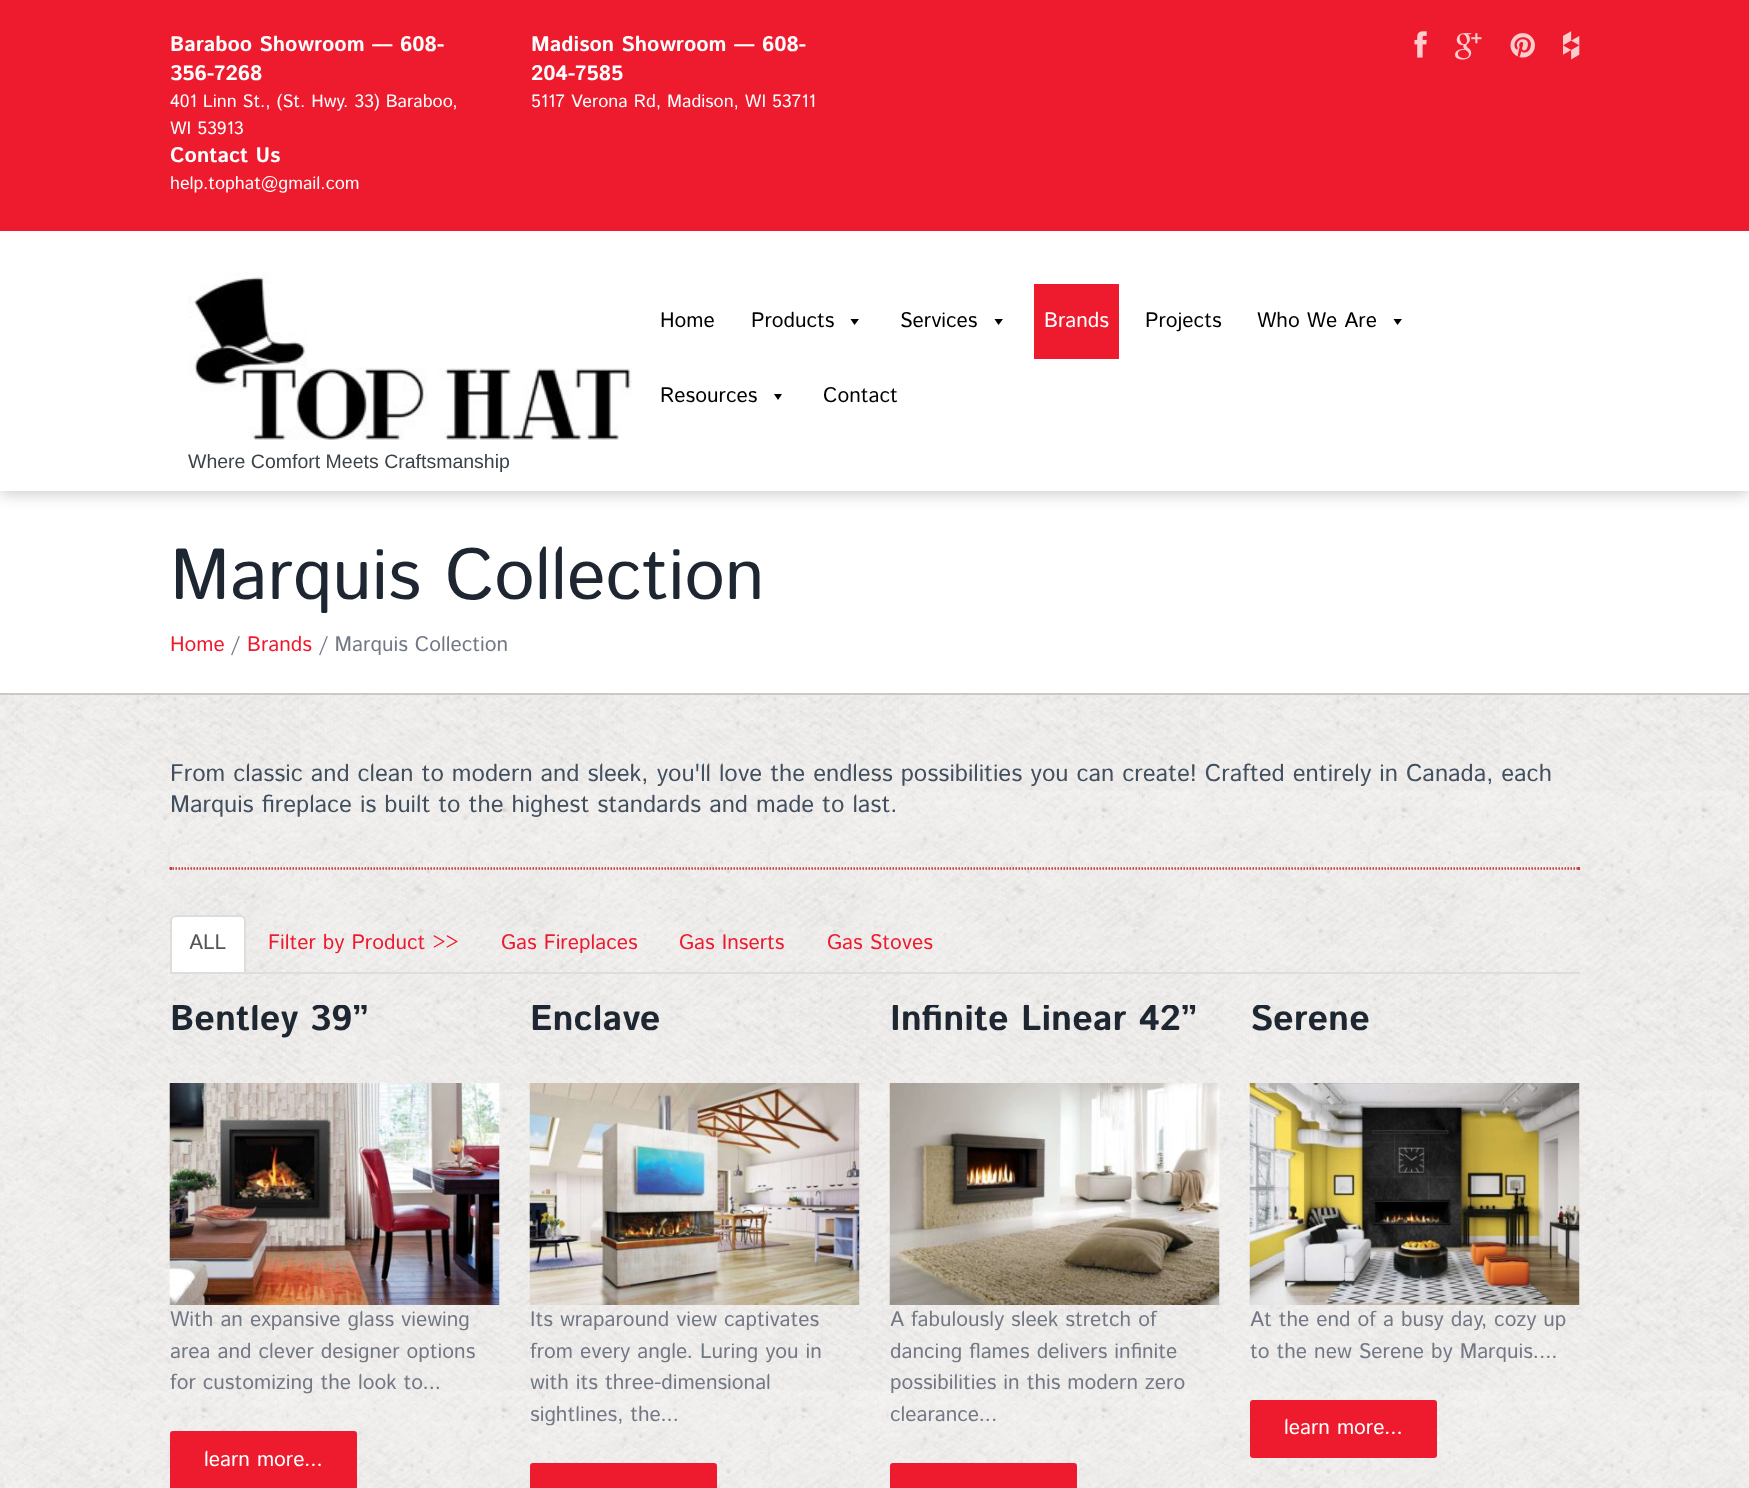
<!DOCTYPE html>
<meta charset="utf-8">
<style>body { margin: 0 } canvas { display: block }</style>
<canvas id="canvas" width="1749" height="1488"></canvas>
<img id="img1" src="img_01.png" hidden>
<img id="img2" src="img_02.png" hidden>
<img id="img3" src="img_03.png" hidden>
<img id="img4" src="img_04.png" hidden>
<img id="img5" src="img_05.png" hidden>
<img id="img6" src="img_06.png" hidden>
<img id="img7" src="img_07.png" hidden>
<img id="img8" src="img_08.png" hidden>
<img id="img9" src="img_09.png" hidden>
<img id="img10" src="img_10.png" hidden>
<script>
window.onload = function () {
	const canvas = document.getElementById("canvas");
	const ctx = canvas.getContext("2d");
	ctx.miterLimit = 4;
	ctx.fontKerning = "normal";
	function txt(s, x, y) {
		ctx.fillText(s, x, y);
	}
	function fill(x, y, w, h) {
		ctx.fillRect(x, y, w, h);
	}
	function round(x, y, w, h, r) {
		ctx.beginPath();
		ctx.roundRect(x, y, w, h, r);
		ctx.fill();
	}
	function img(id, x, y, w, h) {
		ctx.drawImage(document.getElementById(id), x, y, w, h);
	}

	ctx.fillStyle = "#FFFFFF";
	fill(0, 0, 1749, 1488);
	ctx.fillStyle = "rgba(0, 0, 0, 0.2)";
	ctx.filter = "blur(7.5px)";
	ctx.beginPath();
	ctx.rect(0, 3, 1749, 491);
	ctx.fill();
	ctx.filter = "none";
	ctx.fillStyle = "#FFFFFF";
	fill(0, 231, 1749, 260);
	ctx.fillStyle = "#EE1B2E";
	fill(0, 0, 170, 231);
	fill(170, 0, 1579, 231);
	img("img1", 1414, 31, 13, 27);
	img("img2", 1455, 33, 27, 27);
	img("img3", 1510, 33, 25, 25);
	img("img4", 1563, 31, 17, 29);
	ctx.fillStyle = "#000000";
	ctx.beginPath();
	ctx.moveTo(859, 319);
	ctx.lineTo(854.5, 325);
	ctx.lineTo(850.5, 319);
	ctx.closePath();
	ctx.fill();
	ctx.beginPath();
	ctx.moveTo(1003, 319);
	ctx.lineTo(998.5, 325);
	ctx.lineTo(994.5, 319);
	ctx.closePath();
	ctx.fill();
	ctx.fillStyle = "#EE1B2E";
	fill(1034, 284, 85, 75);
	ctx.fillStyle = "#000000";
	ctx.beginPath();
	ctx.moveTo(1402, 319);
	ctx.lineTo(1397.5, 325);
	ctx.lineTo(1393.5, 319);
	ctx.closePath();
	ctx.fill();
	ctx.beginPath();
	ctx.moveTo(782, 394);
	ctx.lineTo(778, 400);
	ctx.lineTo(774, 394);
	ctx.closePath();
	ctx.fill();
	img("img5", 188, 271, 444, 169);
	img("img6", 0, 695, 1749, 793);
	ctx.fillStyle = "#C9C9C9";
	fill(0, 693, 170, 2);
	fill(170, 693, 1579, 2);
	ctx.beginPath();
	ctx.moveTo(169.5, 868);
	ctx.lineTo(1579.5, 868);
	ctx.strokeStyle = "#C63D3D";
	ctx.lineWidth = 1.5;
	ctx.setLineDash([1.5, 1.5]);
	ctx.stroke();
	ctx.fillStyle = "#C63D3D";
	fill(1578, 867, 2, 3);
	ctx.beginPath();
	ctx.moveTo(169.5, 869);
	ctx.lineTo(1579.5, 869);
	ctx.stroke();
	fill(170, 867, 2, 3);
	ctx.fillStyle = "#DDDDDD";
	fill(246, 972, 1334, 2);
	ctx.fillStyle = "#FFFFFF";
	ctx.beginPath();
	ctx.roundRect(171, 916, 74, 57, [5, 5, 0, 0]);
	ctx.fill();
	ctx.strokeStyle = "#DDDDDD";
	ctx.lineWidth = 2;
	ctx.setLineDash([]);
	ctx.stroke();
	img("img7", 169, 1083, 331, 222);
	ctx.fillStyle = "#EE1B2E";
	round(170, 1431, 187, 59, 3);
	img("img8", 529, 1083, 331, 222);
	round(530, 1463, 187, 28, 3);
	img("img9", 889, 1083, 331, 222);
	round(890, 1463, 187, 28, 3);
	img("img10", 1249, 1083, 331, 222);
	round(1250, 1400, 187, 58, 3);
	ctx.font = "bold 21px Istok Web";
	ctx.fillStyle = "#FFFFFF";
	txt("Baraboo Showroom — 608-", 170, 51);
	txt("356-7268", 170, 80);
	ctx.font = "18px Istok Web";
	txt("401 Linn St., (St. Hwy. 33) Baraboo,", 170, 107);
	txt("WI 53913", 170, 134);
	ctx.font = "bold 21px Istok Web";
	txt("Madison Showroom — 608-", 531, 51);
	txt("204-7585", 531, 80);
	ctx.font = "18px Istok Web";
	txt("5117 Verona Rd, Madison, WI 53711", 531, 107);
	ctx.font = "bold 21px Istok Web";
	txt("Contact Us", 170, 162);
	ctx.font = "18px Istok Web";
	txt("help.tophat@gmail.com", 170, 189);
	ctx.font = "21px Istok Web";
	ctx.fillStyle = "#000000";
	txt("Home", 660, 327);
	txt("Products", 751, 327);
	txt("Services", 900, 327);
	ctx.fillStyle = "#FFFFFF";
	txt("Brands", 1044, 327);
	ctx.fillStyle = "#000000";
	txt("Projects", 1145, 327);
	txt("Who We Are", 1257, 327);
	txt("Resources", 660, 402);
	txt("Contact", 823, 402);
	ctx.font = "19.5px Liberation Sans";
	ctx.fillStyle = "#3B4348";
	txt("Where Comfort Meets Craftsmanship", 188, 468);
	ctx.font = "72px Istok Web";
	ctx.fillStyle = "#1E2731";
	txt("Marquis Collection", 170, 599);
	ctx.font = "21px Istok Web";
	ctx.fillStyle = "#EE1B2E";
	txt("Home", 170, 651);
	ctx.fillStyle = "#737885";
	txt("/", 231, 651);
	ctx.fillStyle = "#EE1B2E";
	txt("Brands", 247, 651);
	ctx.fillStyle = "#737885";
	txt("/ Marquis Collection", 319, 651);
	ctx.font = "24px Istok Web";
	ctx.fillStyle = "#424F5E";
	txt("From classic and clean to modern and sleek, you'll love the endless possibilities you can create! Crafted entirely in Canada, each", 170, 781);
	txt("Marquis fireplace is built to the highest standards and made to last.", 170, 812);
	ctx.font = "21px Istok Web";
	ctx.fillStyle = "#555555";
	txt("ALL", 189, 949);
	ctx.fillStyle = "#EE1B2E";
	txt("Filter by Product >>", 268, 949);
	txt("Gas Fireplaces", 501, 949);
	txt("Gas Inserts", 679, 949);
	txt("Gas Stoves", 827, 949);
	ctx.save();
	ctx.beginPath();
	ctx.rect(170, 1005, 1410, 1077);
	ctx.clip();
	ctx.font = "bold 36px Istok Web";
	ctx.fillStyle = "#1E2731";
	txt("Bentley 39”", 170, 1030);
	ctx.restore();
	ctx.fillStyle = "#737885";
	txt("With an expansive glass viewing", 170, 1326);
	txt("area and clever designer options", 170, 1358);
	txt("for customizing the look to...", 170, 1389);
	ctx.fillStyle = "#FFFFFF";
	txt("learn more...", 204, 1466);
	ctx.save();
	ctx.beginPath();
	ctx.rect(170, 1005, 1410, 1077);
	ctx.clip();
	ctx.font = "bold 36px Istok Web";
	ctx.fillStyle = "#1E2731";
	txt("Enclave", 530, 1030);
	ctx.restore();
	ctx.fillStyle = "#737885";
	txt("Its wraparound view captivates", 530, 1326);
	txt("from every angle. Luring you in", 530, 1358);
	txt("with its three-dimensional", 530, 1389);
	txt("sightlines, the...", 530, 1421);
	ctx.save();
	ctx.beginPath();
	ctx.rect(170, 1005, 1410, 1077);
	ctx.clip();
	ctx.font = "bold 36px Istok Web";
	ctx.fillStyle = "#1E2731";
	txt("Infinite Linear 42”", 890, 1030);
	ctx.restore();
	txt("A fabulously sleek stretch of", 890, 1326);
	txt("dancing flames delivers infinite", 890, 1358);
	txt("possibilities in this modern zero", 890, 1389);
	txt("clearance...", 890, 1421);
	ctx.save();
	ctx.beginPath();
	ctx.rect(170, 1005, 1410, 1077);
	ctx.clip();
	ctx.font = "bold 36px Istok Web";
	ctx.fillStyle = "#1E2731";
	txt("Serene", 1250, 1030);
	ctx.restore();
	txt("At the end of a busy day, cozy up", 1250, 1326);
	txt("to the new Serene by Marquis....", 1250, 1358);
	ctx.fillStyle = "#FFFFFF";
	txt("learn more...", 1284, 1434);
};
</script>
